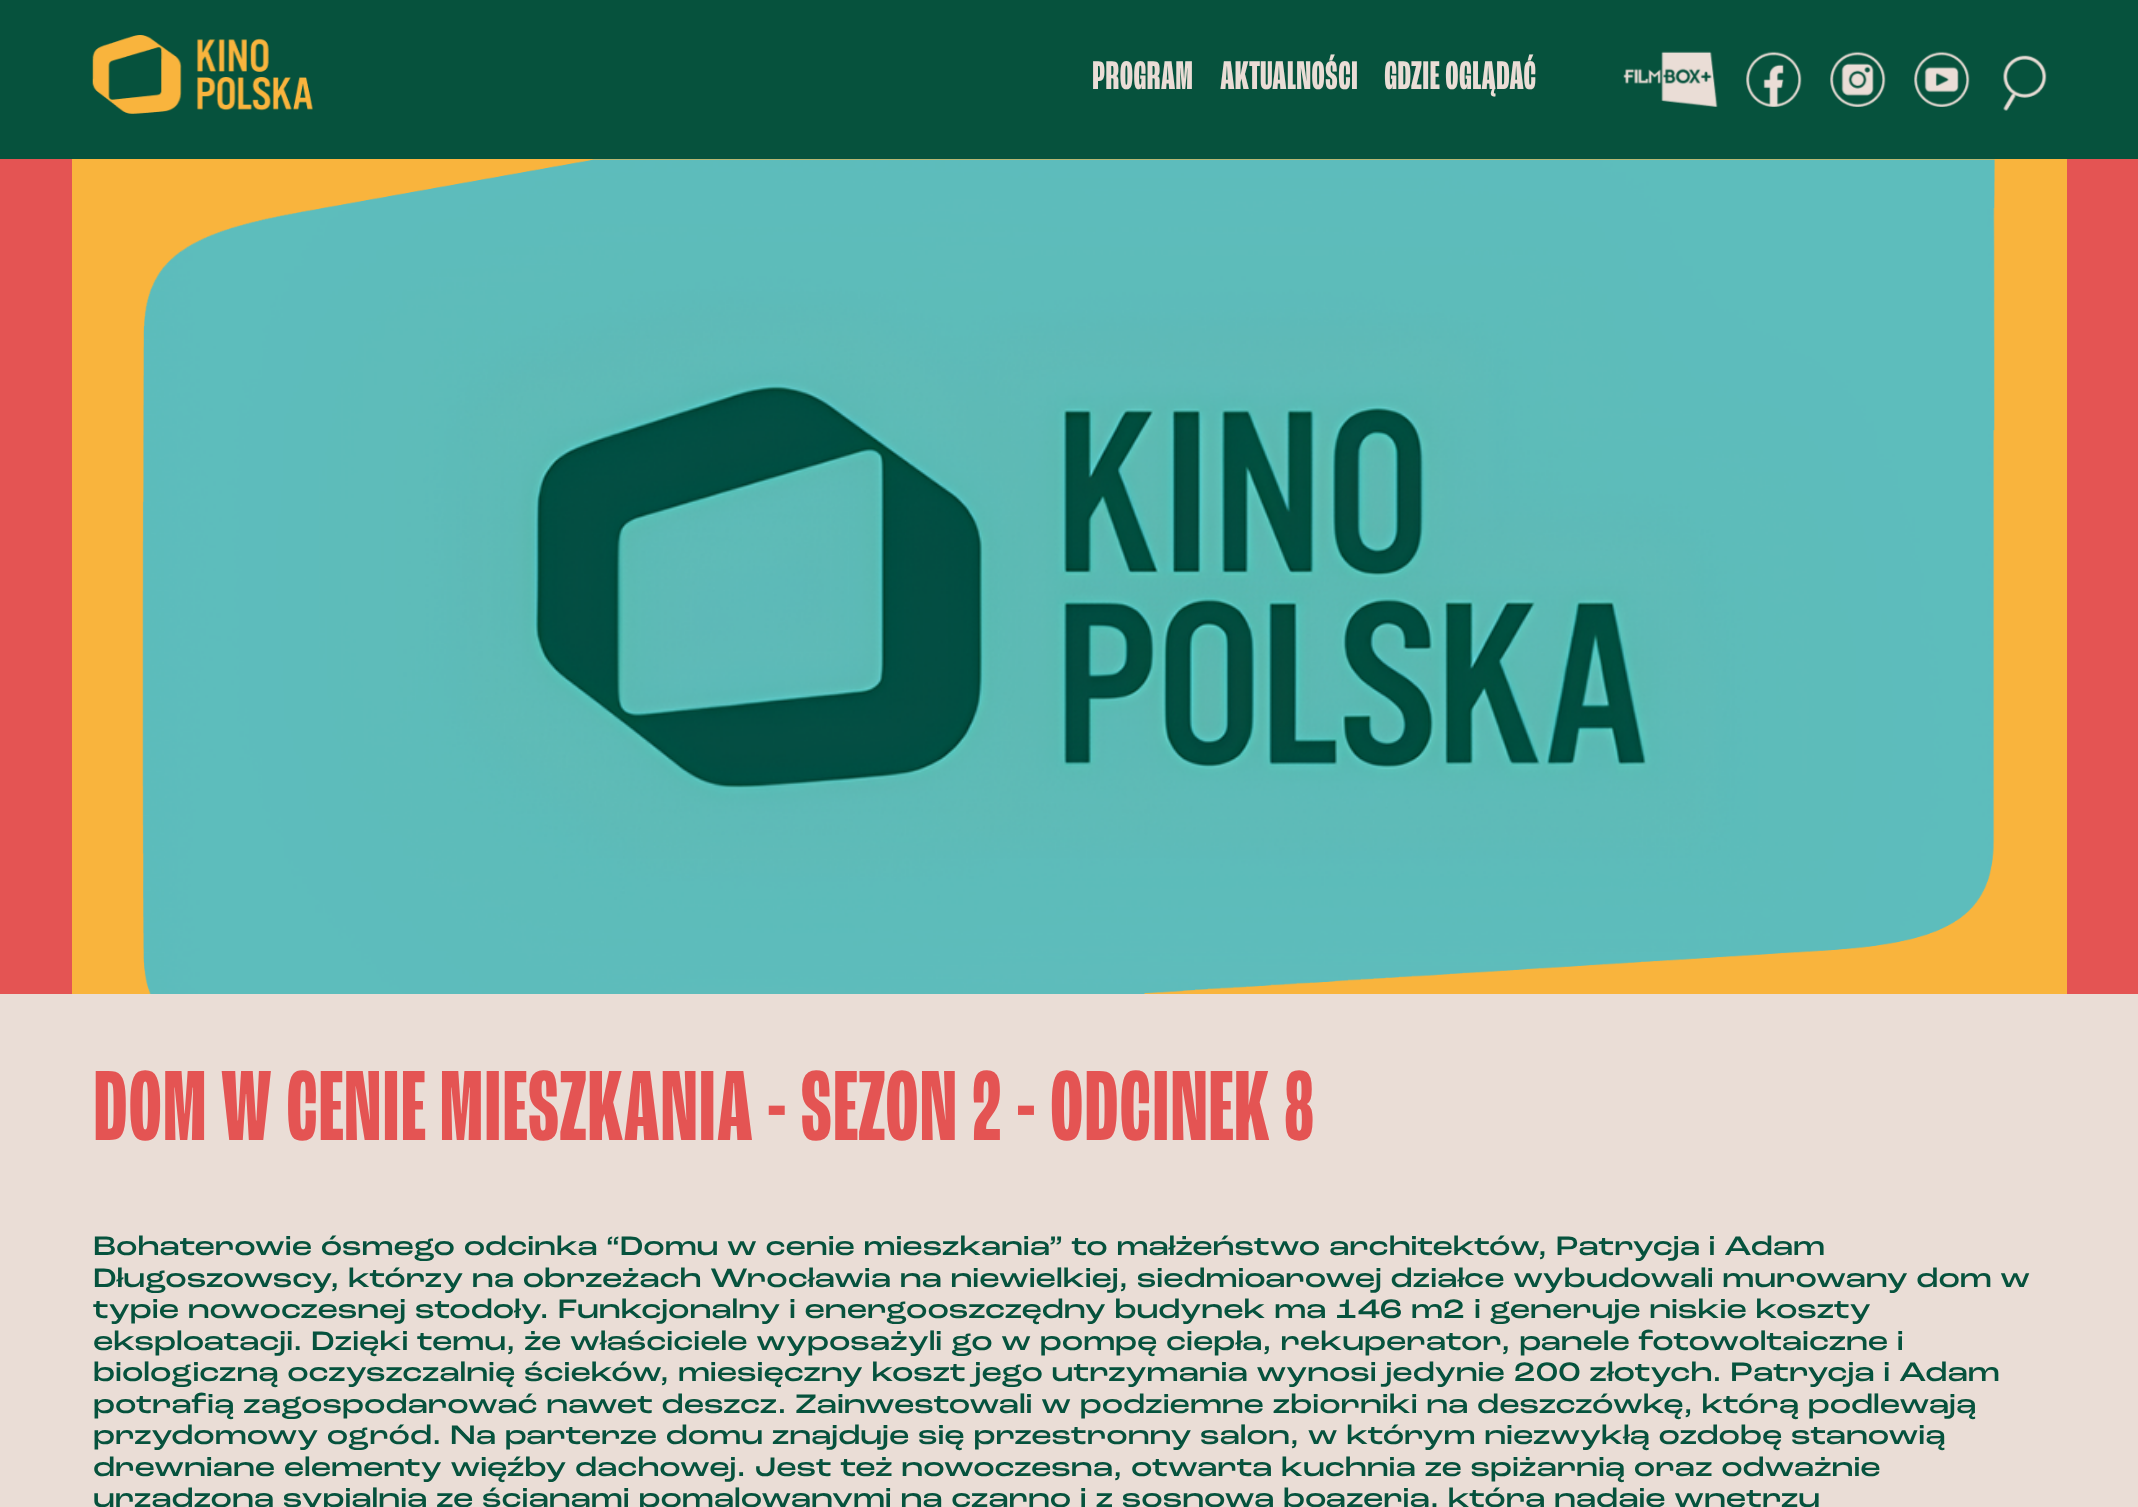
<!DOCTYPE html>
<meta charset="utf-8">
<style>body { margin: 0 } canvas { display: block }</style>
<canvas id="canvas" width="2138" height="1507"></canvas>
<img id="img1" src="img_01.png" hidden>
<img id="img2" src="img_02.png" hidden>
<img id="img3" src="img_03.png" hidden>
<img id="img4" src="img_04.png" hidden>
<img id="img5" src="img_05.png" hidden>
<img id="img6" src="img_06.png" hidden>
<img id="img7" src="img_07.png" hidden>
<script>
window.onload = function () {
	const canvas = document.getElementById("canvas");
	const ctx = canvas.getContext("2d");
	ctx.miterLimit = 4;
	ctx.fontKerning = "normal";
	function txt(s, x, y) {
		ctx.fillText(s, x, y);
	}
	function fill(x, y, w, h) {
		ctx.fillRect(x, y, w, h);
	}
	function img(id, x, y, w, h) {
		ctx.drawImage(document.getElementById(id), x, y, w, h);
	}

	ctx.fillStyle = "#EADDD6";
	fill(0, 0, 2138, 1507);
	ctx.fillStyle = "#06523D";
	fill(0, 0, 2138, 159);
	img("img1", 92, 35, 221, 79);
	img("img2", 1623, 51, 95, 56);
	img("img3", 1746, 51, 56, 56);
	img("img4", 1830, 51, 56, 56);
	img("img5", 1914, 51, 56, 56);
	img("img6", 2003, 55, 44, 56);
	ctx.fillStyle = "#E45453";
	fill(0, 159, 2138, 835);
	ctx.fillStyle = "#F9B43D";
	fill(72, 159, 1995, 835);
	img("img7", 142, 159, 1853, 835);
	ctx.font = "bold 42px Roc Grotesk";
	ctx.fillStyle = "#EADDD6";
	txt("PROGRAM", 1092, 89);
	txt("AKTUALNOŚCI", 1220, 89);
	txt("GDZIE OGLĄDAĆ", 1384, 89);
	ctx.font = "bold 105px Roc Grotesk";
	ctx.fillStyle = "#E45453";
	txt("DOM W CENIE MIESZKANIA - SEZON 2 - ODCINEK 8", 93, 1140);
	ctx.font = "500 28px Roc Grotesk";
	ctx.fillStyle = "#06523D";
	txt("Bohaterowie ósmego odcinka “Domu w cenie mieszkania” to małżeństwo architektów, Patrycja i Adam", 93, 1255);
	txt("Długoszowscy, którzy na obrzeżach Wrocławia na niewielkiej, siedmioarowej działce wybudowali murowany dom w", 93, 1287);
	txt("typie nowoczesnej stodoły. Funkcjonalny i energooszczędny budynek ma 146 m2 i generuje niskie koszty", 93, 1318);
	txt("eksploatacji. Dzięki temu, że właściciele wyposażyli go w pompę ciepła, rekuperator, panele fotowoltaiczne i", 93, 1350);
	txt("biologiczną oczyszczalnię ścieków, miesięczny koszt jego utrzymania wynosi jedynie 200 złotych. Patrycja i Adam", 93, 1381);
	txt("potrafią zagospodarować nawet deszcz. Zainwestowali w podziemne zbiorniki na deszczówkę, którą podlewają", 93, 1413);
	txt("przydomowy ogród. Na parterze domu znajduje się przestronny salon, w którym niezwykłą ozdobę stanowią", 93, 1444);
	txt("drewniane elementy więźby dachowej. Jest też nowoczesna, otwarta kuchnia ze spiżarnią oraz odważnie", 93, 1476);
	txt("urządzona sypialnia ze ścianami pomalowanymi na czarno i z sosnową boazerią, która nadaje wnętrzu", 93, 1507);
};
</script>
